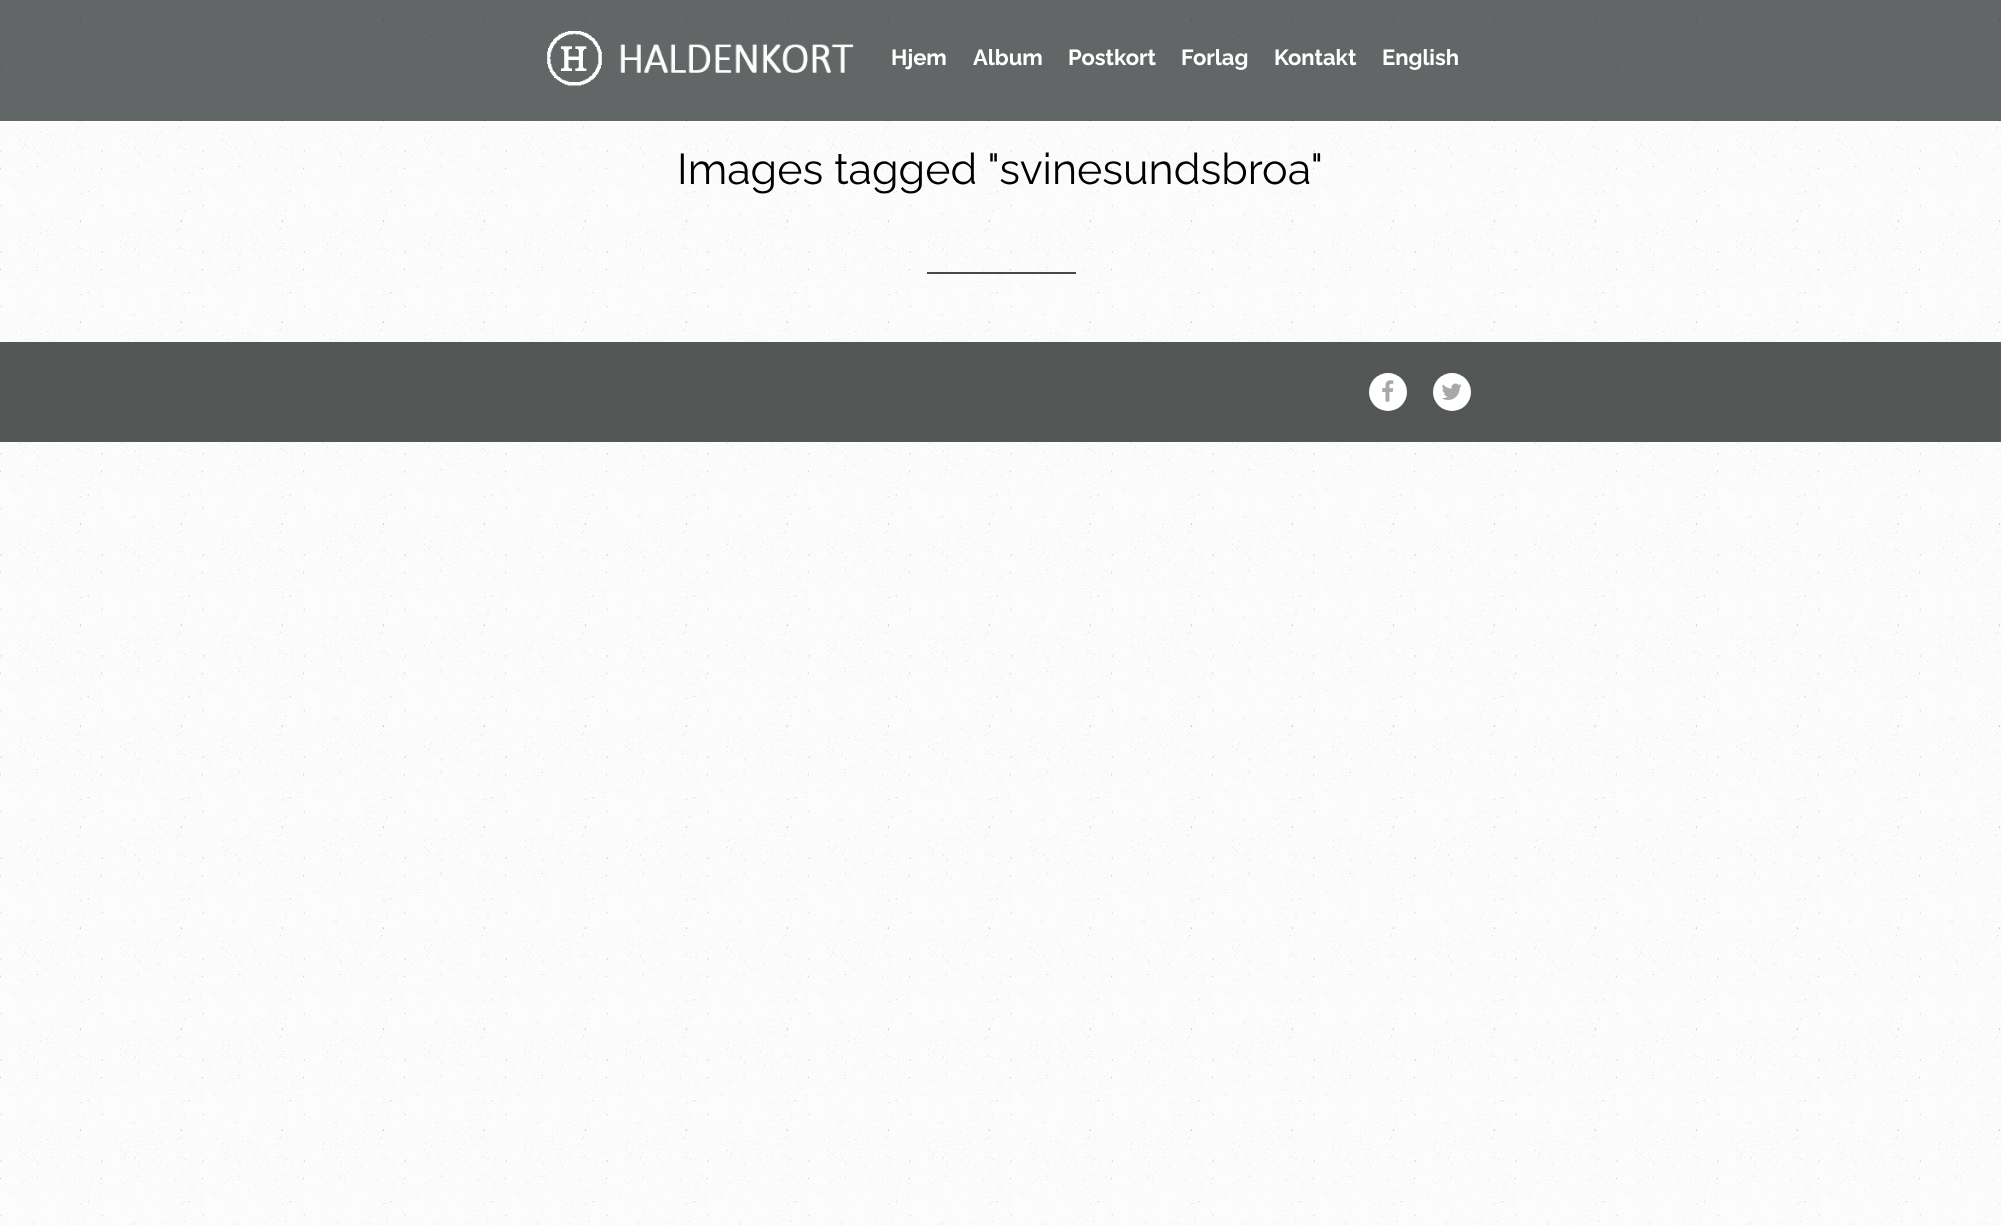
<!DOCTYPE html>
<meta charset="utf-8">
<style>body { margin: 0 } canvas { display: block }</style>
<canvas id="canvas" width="2001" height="1226"></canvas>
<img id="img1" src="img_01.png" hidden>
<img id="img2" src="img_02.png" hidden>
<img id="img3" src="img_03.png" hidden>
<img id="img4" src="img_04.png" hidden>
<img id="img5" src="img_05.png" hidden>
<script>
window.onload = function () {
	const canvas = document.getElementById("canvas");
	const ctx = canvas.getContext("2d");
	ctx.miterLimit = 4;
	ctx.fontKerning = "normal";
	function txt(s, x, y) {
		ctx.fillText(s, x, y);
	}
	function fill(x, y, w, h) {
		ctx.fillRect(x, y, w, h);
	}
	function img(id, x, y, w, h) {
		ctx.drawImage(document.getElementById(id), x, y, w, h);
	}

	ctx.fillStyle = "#FFFFFF";
	fill(0, 0, 2001, 1226);
	img("img1", 0, 442, 2001, 784);
	img("img2", 0, 0, 2001, 342);
	ctx.fillStyle = "rgba(34, 38, 38, 0.7)";
	fill(0, 0, 2001, 121);
	img("img3", 547, 31, 307, 55);
	ctx.fillStyle = "#434B52";
	fill(927, 272, 149, 2);
	ctx.fillStyle = "#535756";
	fill(0, 342, 2001, 100);
	ctx.fillStyle = "#FFFFFF";
	ctx.beginPath();
	ctx.arc(1388, 392, 19, 0, Math.PI * 2);
	ctx.fill();
	img("img4", 1382, 380, 12, 22);
	ctx.beginPath();
	ctx.arc(1452, 392, 19, 0, Math.PI * 2);
	ctx.fill();
	img("img5", 1441, 383, 21, 17);
	ctx.font = "bold 22px Raleway";
	txt("Hjem", 891, 65);
	txt("Album", 973, 65);
	txt("Postkort", 1068, 65);
	txt("Forlag", 1181, 65);
	txt("Kontakt", 1274, 65);
	txt("English", 1382, 65);
	ctx.font = "100 43px Raleway";
	ctx.fillStyle = "#000000";
	txt("Images tagged \"svinesundsbroa\"", 677, 184);
};
</script>
